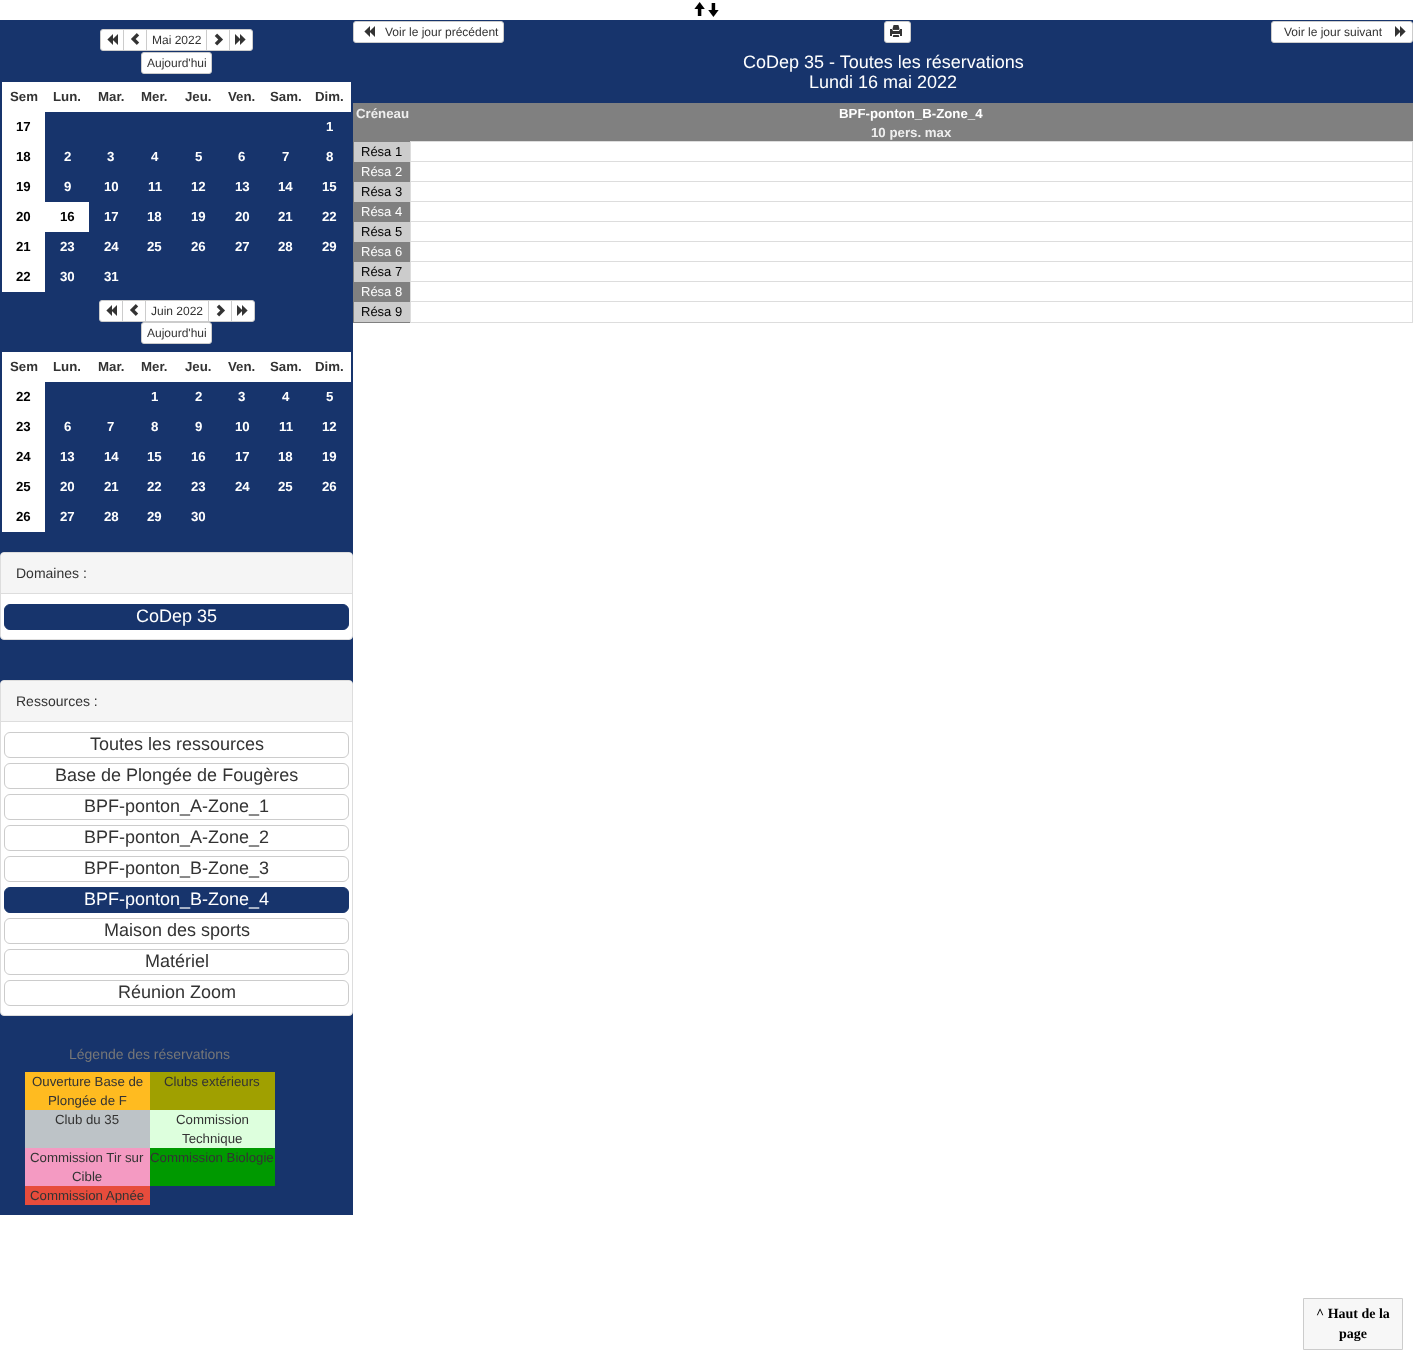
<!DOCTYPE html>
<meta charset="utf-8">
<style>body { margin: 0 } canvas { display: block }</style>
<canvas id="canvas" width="1413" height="1360"></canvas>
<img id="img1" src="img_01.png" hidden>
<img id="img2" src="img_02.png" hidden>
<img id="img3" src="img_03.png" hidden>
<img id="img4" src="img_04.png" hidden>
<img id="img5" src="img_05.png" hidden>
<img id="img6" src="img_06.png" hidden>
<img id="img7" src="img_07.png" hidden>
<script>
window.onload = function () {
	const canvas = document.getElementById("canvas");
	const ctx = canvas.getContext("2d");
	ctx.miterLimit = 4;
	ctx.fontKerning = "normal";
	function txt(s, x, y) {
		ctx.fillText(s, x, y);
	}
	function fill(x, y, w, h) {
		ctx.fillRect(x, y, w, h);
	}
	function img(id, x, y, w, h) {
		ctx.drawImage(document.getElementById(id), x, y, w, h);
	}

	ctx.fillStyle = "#FFFFFF";
	fill(0, 0, 1413, 1360);
	ctx.fillStyle = "#17346C";
	fill(0, 20, 1413, 1);
	img("img1", 694, 2, 11, 14);
	img("img2", 708, 3, 11, 14);
	fill(0, 21, 353, 1194);
	ctx.fillStyle = "#FFFFFF";
	fill(2, 82, 349, 210);
	ctx.beginPath();
	ctx.roundRect(100.5, 29.5, 23, 21, [2.5, 0, 0, 2.5]);
	ctx.fill();
	ctx.strokeStyle = "#CCCCCC";
	ctx.stroke();
	img("img3", 107, 34, 11, 11);
	ctx.beginPath();
	ctx.rect(123.5, 29.5, 23, 21);
	ctx.fill();
	ctx.stroke();
	img("img4", 131, 33, 9, 12);
	ctx.beginPath();
	ctx.rect(146.5, 29.5, 60, 21);
	ctx.fill();
	ctx.stroke();
	ctx.beginPath();
	ctx.rect(206.5, 29.5, 23, 21);
	ctx.fill();
	ctx.stroke();
	img("img5", 214, 33, 9, 13);
	ctx.beginPath();
	ctx.roundRect(229.5, 29.5, 23, 21, [0, 2.5, 2.5, 0]);
	ctx.fill();
	ctx.stroke();
	img("img6", 235, 34, 11, 11);
	ctx.beginPath();
	ctx.roundRect(141.5, 52.5, 70, 21, 2.5);
	ctx.fill();
	ctx.stroke();
	ctx.fillStyle = "#17346C";
	fill(45, 112, 306, 30);
	fill(45, 142, 306, 30);
	fill(45, 172, 306, 30);
	fill(89, 202, 262, 30);
	fill(45, 232, 306, 30);
	fill(45, 262, 306, 30);
	ctx.fillStyle = "#FFFFFF";
	fill(2, 352, 349, 180);
	ctx.beginPath();
	ctx.roundRect(99.5, 300.5, 23, 21, [2.5, 0, 0, 2.5]);
	ctx.fill();
	ctx.stroke();
	img("img3", 106, 305, 11, 11);
	ctx.beginPath();
	ctx.rect(122.5, 300.5, 23, 21);
	ctx.fill();
	ctx.stroke();
	img("img4", 130, 304, 9, 12);
	ctx.beginPath();
	ctx.rect(145.5, 300.5, 63, 21);
	ctx.fill();
	ctx.stroke();
	ctx.beginPath();
	ctx.rect(208.5, 300.5, 23, 21);
	ctx.fill();
	ctx.stroke();
	img("img5", 216, 304, 9, 13);
	ctx.beginPath();
	ctx.roundRect(231.5, 300.5, 23, 21, [0, 2.5, 2.5, 0]);
	ctx.fill();
	ctx.stroke();
	img("img6", 237, 305, 11, 11);
	ctx.beginPath();
	ctx.roundRect(141.5, 322.5, 70, 21, 2.5);
	ctx.fill();
	ctx.stroke();
	ctx.fillStyle = "#17346C";
	fill(45, 382, 306, 30);
	fill(45, 412, 306, 30);
	fill(45, 442, 306, 30);
	fill(45, 472, 306, 30);
	fill(45, 502, 306, 30);
	ctx.fillStyle = "#FFFFFF";
	ctx.beginPath();
	ctx.roundRect(0.5, 552.5, 352, 87, 3.5);
	ctx.fill();
	ctx.strokeStyle = "#DDDDDD";
	ctx.stroke();
	ctx.fillStyle = "#F5F5F5";
	ctx.beginPath();
	ctx.roundRect(1, 553, 351, 41, [3, 3, 0, 0]);
	ctx.fill();
	ctx.fillStyle = "#DDDDDD";
	fill(1, 593, 351, 1);
	ctx.fillStyle = "#17346C";
	ctx.beginPath();
	ctx.roundRect(4.5, 604.5, 344, 25, 5.5);
	ctx.fill();
	ctx.strokeStyle = "#17346C";
	ctx.stroke();
	ctx.fillStyle = "#FFFFFF";
	ctx.beginPath();
	ctx.roundRect(0.5, 680.5, 352, 335, 3.5);
	ctx.fill();
	ctx.strokeStyle = "#DDDDDD";
	ctx.stroke();
	ctx.fillStyle = "#F5F5F5";
	ctx.beginPath();
	ctx.roundRect(1, 681, 351, 41, [3, 3, 0, 0]);
	ctx.fill();
	ctx.fillStyle = "#DDDDDD";
	fill(1, 721, 351, 1);
	ctx.beginPath();
	ctx.roundRect(4.5, 732.5, 344, 25, 5.5);
	ctx.strokeStyle = "#CCCCCC";
	ctx.stroke();
	ctx.beginPath();
	ctx.roundRect(4.5, 763.5, 344, 25, 5.5);
	ctx.stroke();
	ctx.beginPath();
	ctx.roundRect(4.5, 794.5, 344, 25, 5.5);
	ctx.stroke();
	ctx.beginPath();
	ctx.roundRect(4.5, 825.5, 344, 25, 5.5);
	ctx.stroke();
	ctx.beginPath();
	ctx.roundRect(4.5, 856.5, 344, 25, 5.5);
	ctx.stroke();
	ctx.fillStyle = "#17346C";
	ctx.beginPath();
	ctx.roundRect(4.5, 887.5, 344, 25, 5.5);
	ctx.fill();
	ctx.strokeStyle = "#17346C";
	ctx.stroke();
	ctx.beginPath();
	ctx.roundRect(4.5, 918.5, 344, 25, 5.5);
	ctx.strokeStyle = "#CCCCCC";
	ctx.stroke();
	ctx.beginPath();
	ctx.roundRect(4.5, 949.5, 344, 25, 5.5);
	ctx.stroke();
	ctx.beginPath();
	ctx.roundRect(4.5, 980.5, 344, 25, 5.5);
	ctx.stroke();
	ctx.fillStyle = "#FFBB20";
	fill(25, 1072, 125, 38);
	ctx.fillStyle = "#A0A000";
	fill(150, 1072, 125, 38);
	ctx.fillStyle = "#BDC3C7";
	fill(25, 1110, 125, 38);
	ctx.fillStyle = "#DDFFDD";
	fill(150, 1110, 125, 38);
	ctx.fillStyle = "#F49AC2";
	fill(25, 1148, 125, 38);
	ctx.fillStyle = "#009900";
	fill(150, 1148, 125, 38);
	ctx.fillStyle = "#E74C3C";
	fill(25, 1186, 125, 19);
	ctx.fillStyle = "#17346C";
	fill(353, 21, 1060, 82);
	ctx.fillStyle = "#FFFFFF";
	ctx.beginPath();
	ctx.roundRect(353.5, 21.5, 150, 21, 2.5);
	ctx.fill();
	ctx.stroke();
	img("img3", 364, 26, 11, 11);
	ctx.beginPath();
	ctx.roundRect(884.5, 21.5, 26, 21, 2.5);
	ctx.fill();
	ctx.stroke();
	img("img7", 890, 25, 12, 12);
	ctx.beginPath();
	ctx.roundRect(1271.5, 21.5, 141, 21, 2.5);
	ctx.fill();
	ctx.stroke();
	img("img6", 1395, 26, 11, 11);
	ctx.fillStyle = "#808080";
	fill(353, 103, 1060, 1);
	fill(1412, 103, 1, 38);
	fill(353, 322, 57, 1);
	fill(353, 103, 1, 220);
	fill(354, 104, 56, 38);
	fill(410, 104, 1002, 37);
	ctx.fillStyle = "#CCCCCC";
	fill(354, 142, 56, 20);
	ctx.fillStyle = "#DDDDDD";
	fill(410, 141, 1003, 1);
	fill(410, 161, 1003, 1);
	fill(410, 181, 1003, 1);
	fill(410, 201, 1003, 1);
	fill(410, 221, 1003, 1);
	fill(410, 241, 1003, 1);
	fill(410, 261, 1003, 1);
	fill(410, 281, 1003, 1);
	fill(410, 301, 1003, 1);
	fill(1412, 301, 1, 22);
	fill(1412, 281, 1, 21);
	fill(1412, 261, 1, 21);
	fill(1412, 241, 1, 21);
	fill(1412, 221, 1, 21);
	fill(1412, 201, 1, 21);
	fill(1412, 181, 1, 21);
	fill(1412, 161, 1, 21);
	fill(1412, 141, 1, 21);
	fill(410, 322, 1003, 1);
	fill(410, 301, 1, 22);
	fill(410, 281, 1, 21);
	fill(410, 261, 1, 21);
	fill(410, 241, 1, 21);
	fill(410, 221, 1, 21);
	fill(410, 201, 1, 21);
	fill(410, 181, 1, 21);
	fill(410, 161, 1, 21);
	fill(410, 141, 1, 21);
	ctx.fillStyle = "#808080";
	fill(354, 162, 56, 20);
	ctx.fillStyle = "#CCCCCC";
	fill(354, 182, 56, 20);
	ctx.fillStyle = "#808080";
	fill(354, 202, 56, 20);
	ctx.fillStyle = "#CCCCCC";
	fill(354, 222, 56, 20);
	ctx.fillStyle = "#808080";
	fill(354, 242, 56, 20);
	ctx.fillStyle = "#CCCCCC";
	fill(354, 262, 56, 20);
	ctx.fillStyle = "#808080";
	fill(354, 282, 56, 20);
	ctx.fillStyle = "#CCCCCC";
	fill(354, 302, 56, 20);
	ctx.fillStyle = "#F7F7F7";
	ctx.beginPath();
	ctx.rect(1303.5, 1298.5, 99, 51);
	ctx.fill();
	ctx.stroke();
	ctx.font = "12px Liberation Sans";
	ctx.fillStyle = "#333333";
	txt("Mai 2022", 152, 44);
	txt("Aujourd'hui", 147, 67);
	ctx.font = "bold 13.25px Liberation Sans";
	txt("Sem", 10, 101);
	txt("Lun.", 53, 101);
	txt("Mar.", 98, 101);
	txt("Mer.", 141, 101);
	txt("Jeu.", 185, 101);
	txt("Ven.", 228, 101);
	txt("Sam.", 270, 101);
	txt("Dim.", 315, 101);
	ctx.fillStyle = "#000000";
	txt("17", 16, 131);
	ctx.fillStyle = "#FFFFFF";
	txt("1", 326, 131);
	ctx.fillStyle = "#000000";
	txt("18", 16, 161);
	ctx.fillStyle = "#FFFFFF";
	txt("2", 64, 161);
	txt("3", 107, 161);
	txt("4", 151, 161);
	txt("5", 195, 161);
	txt("6", 238, 161);
	txt("7", 282, 161);
	txt("8", 326, 161);
	ctx.fillStyle = "#000000";
	txt("19", 16, 191);
	ctx.fillStyle = "#FFFFFF";
	txt("9", 64, 191);
	txt("10", 104, 191);
	txt("11", 148, 191);
	txt("12", 191, 191);
	txt("13", 235, 191);
	txt("14", 278, 191);
	txt("15", 322, 191);
	ctx.fillStyle = "#000000";
	txt("20", 16, 221);
	txt("16", 60, 221);
	ctx.fillStyle = "#FFFFFF";
	txt("17", 104, 221);
	txt("18", 147, 221);
	txt("19", 191, 221);
	txt("20", 235, 221);
	txt("21", 278, 221);
	txt("22", 322, 221);
	ctx.fillStyle = "#000000";
	txt("21", 16, 251);
	ctx.fillStyle = "#FFFFFF";
	txt("23", 60, 251);
	txt("24", 104, 251);
	txt("25", 147, 251);
	txt("26", 191, 251);
	txt("27", 235, 251);
	txt("28", 278, 251);
	txt("29", 322, 251);
	ctx.fillStyle = "#000000";
	txt("22", 16, 281);
	ctx.fillStyle = "#FFFFFF";
	txt("30", 60, 281);
	txt("31", 104, 281);
	ctx.font = "12px Liberation Sans";
	ctx.fillStyle = "#333333";
	txt("Juin 2022", 151, 315);
	txt("Aujourd'hui", 147, 337);
	ctx.font = "bold 13.25px Liberation Sans";
	txt("Sem", 10, 371);
	txt("Lun.", 53, 371);
	txt("Mar.", 98, 371);
	txt("Mer.", 141, 371);
	txt("Jeu.", 185, 371);
	txt("Ven.", 228, 371);
	txt("Sam.", 270, 371);
	txt("Dim.", 315, 371);
	ctx.fillStyle = "#000000";
	txt("22", 16, 401);
	ctx.fillStyle = "#FFFFFF";
	txt("1", 151, 401);
	txt("2", 195, 401);
	txt("3", 238, 401);
	txt("4", 282, 401);
	txt("5", 326, 401);
	ctx.fillStyle = "#000000";
	txt("23", 16, 431);
	ctx.fillStyle = "#FFFFFF";
	txt("6", 64, 431);
	txt("7", 107, 431);
	txt("8", 151, 431);
	txt("9", 195, 431);
	txt("10", 235, 431);
	txt("11", 279, 431);
	txt("12", 322, 431);
	ctx.fillStyle = "#000000";
	txt("24", 16, 461);
	ctx.fillStyle = "#FFFFFF";
	txt("13", 60, 461);
	txt("14", 104, 461);
	txt("15", 147, 461);
	txt("16", 191, 461);
	txt("17", 235, 461);
	txt("18", 278, 461);
	txt("19", 322, 461);
	ctx.fillStyle = "#000000";
	txt("25", 16, 491);
	ctx.fillStyle = "#FFFFFF";
	txt("20", 60, 491);
	txt("21", 104, 491);
	txt("22", 147, 491);
	txt("23", 191, 491);
	txt("24", 235, 491);
	txt("25", 278, 491);
	txt("26", 322, 491);
	ctx.fillStyle = "#000000";
	txt("26", 16, 521);
	ctx.fillStyle = "#FFFFFF";
	txt("27", 60, 521);
	txt("28", 104, 521);
	txt("29", 147, 521);
	txt("30", 191, 521);
	ctx.font = "14px Liberation Sans";
	ctx.fillStyle = "#333333";
	txt("Domaines :", 16, 578);
	ctx.font = "18px Liberation Sans";
	ctx.fillStyle = "#FFFFFF";
	txt("CoDep 35", 136, 622);
	ctx.font = "14px Liberation Sans";
	ctx.fillStyle = "#333333";
	txt("Ressources :", 16, 706);
	ctx.font = "18px Liberation Sans";
	txt("Toutes les ressources", 90, 750);
	txt("Base de Plongée de Fougères", 55, 781);
	txt("BPF-ponton_A-Zone_1", 84, 812);
	txt("BPF-ponton_A-Zone_2", 84, 843);
	txt("BPF-ponton_B-Zone_3", 84, 874);
	ctx.fillStyle = "#FFFFFF";
	txt("BPF-ponton_B-Zone_4", 84, 905);
	ctx.fillStyle = "#333333";
	txt("Maison des sports", 104, 936);
	txt("Matériel", 145, 967);
	txt("Réunion Zoom", 118, 998);
	ctx.font = "14px Liberation Sans";
	ctx.fillStyle = "#777777";
	txt("Légende des réservations", 69, 1059);
	ctx.font = "13.25px Liberation Sans";
	ctx.fillStyle = "#333333";
	txt("Ouverture Base de", 32, 1086);
	txt("Plongée de F", 48, 1105);
	txt("Clubs extérieurs", 164, 1086);
	txt("Club du 35", 55, 1124);
	txt("Commission", 176, 1124);
	txt("Technique", 182, 1143);
	txt("Commission Tir sur", 30, 1162);
	txt("Cible", 72, 1181);
	txt("Commission Biologie", 150, 1162);
	txt("Commission Apnée", 30, 1200);
	ctx.font = "12px Liberation Sans";
	txt("Voir le jour précédent", 385, 36);
	txt("Voir le jour suivant", 1284, 36);
	ctx.font = "18px Liberation Sans";
	ctx.fillStyle = "#FFFFFF";
	txt("CoDep 35 - Toutes les réservations", 743, 68);
	txt("Lundi 16 mai 2022", 809, 88);
	ctx.font = "bold 13.25px Liberation Sans";
	ctx.fillStyle = "#EEEEEE";
	txt("Créneau", 356, 118);
	ctx.fillStyle = "#FFFFFF";
	txt("BPF-ponton_B-Zone_4", 839, 118);
	ctx.fillStyle = "#EEEEEE";
	txt("10 pers. max", 871, 137);
	ctx.font = "13px Liberation Sans";
	ctx.fillStyle = "#000000";
	txt("Résa 1", 361, 156);
	ctx.fillStyle = "#FFFFFF";
	txt("Résa 2", 361, 176);
	ctx.fillStyle = "#000000";
	txt("Résa 3", 361, 196);
	ctx.fillStyle = "#FFFFFF";
	txt("Résa 4", 361, 216);
	ctx.fillStyle = "#000000";
	txt("Résa 5", 361, 236);
	ctx.fillStyle = "#FFFFFF";
	txt("Résa 6", 361, 256);
	ctx.fillStyle = "#000000";
	txt("Résa 7", 361, 276);
	ctx.fillStyle = "#FFFFFF";
	txt("Résa 8", 361, 296);
	ctx.fillStyle = "#000000";
	txt("Résa 9", 361, 316);
	ctx.font = "bold 14px Liberation Serif";
	txt("^ Haut de la", 1316, 1318);
	txt("page", 1339, 1338);
};
</script>
